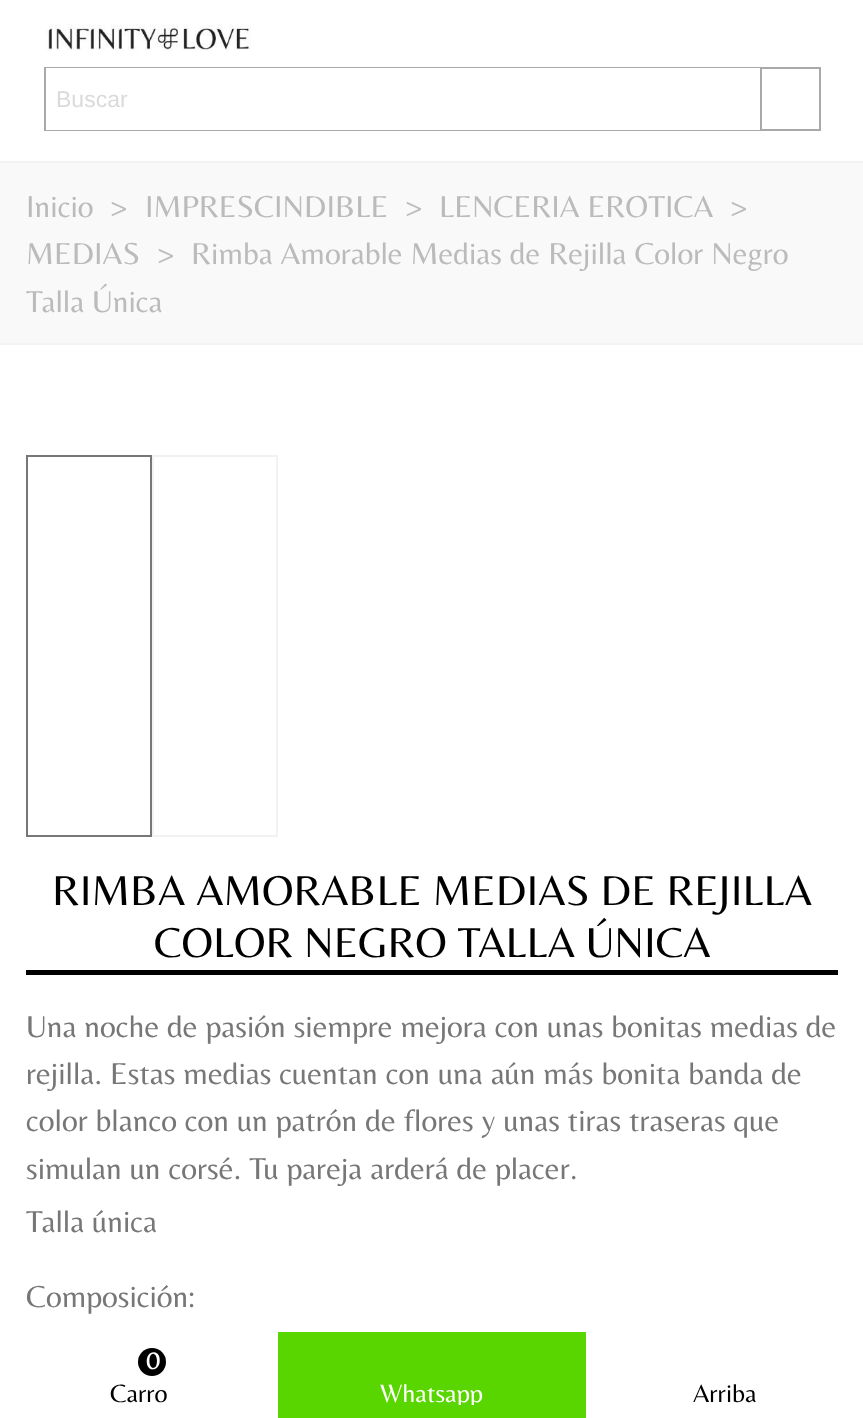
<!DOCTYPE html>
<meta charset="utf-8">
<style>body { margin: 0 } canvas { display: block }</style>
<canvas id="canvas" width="863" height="1418"></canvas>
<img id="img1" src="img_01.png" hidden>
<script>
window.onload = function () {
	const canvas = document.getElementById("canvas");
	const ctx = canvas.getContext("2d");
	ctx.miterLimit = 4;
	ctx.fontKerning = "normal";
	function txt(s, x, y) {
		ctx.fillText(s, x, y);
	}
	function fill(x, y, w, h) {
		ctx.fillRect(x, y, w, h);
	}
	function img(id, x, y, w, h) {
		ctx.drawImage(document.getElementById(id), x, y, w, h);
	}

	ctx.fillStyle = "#FFFFFF";
	fill(0, 0, 863, 1418);
	img("img1", 45, 24, 206, 27);
	ctx.strokeStyle = "#A9A9A9";
	ctx.lineWidth = 2;
	ctx.strokeRect(45, 68, 775, 62);
	fill(46, 68, 714, 62);
	ctx.fillStyle = "#A9A9A9";
	fill(760, 68, 2, 62);
	ctx.fillStyle = "#F9F9F9";
	fill(0, 163, 863, 180);
	ctx.fillStyle = "#F3F3F3";
	fill(0, 161, 863, 2);
	fill(0, 343, 863, 2);
	ctx.strokeStyle = "#777777";
	ctx.strokeRect(27, 456, 124, 380);
	ctx.strokeStyle = "#F2F2F2";
	ctx.strokeRect(153, 456, 124, 380);
	ctx.fillStyle = "#000000";
	fill(26, 970, 812, 5);
	ctx.beginPath();
	ctx.arc(152, 1362, 14, 0, Math.PI * 2);
	ctx.fill();
	ctx.fillStyle = "#59D600";
	fill(278, 1332, 308, 86);
	ctx.font = "23px Liberation Sans";
	ctx.fillStyle = "#DADADA";
	txt("Buscar", 56, 107);
	ctx.font = "31.5px Belleza";
	ctx.fillStyle = "#BBBBBB";
	txt("Inicio", 26, 217);
	txt(">", 110, 217);
	txt("IMPRESCINDIBLE", 145, 217);
	txt(">", 405, 217);
	txt("LENCERIA EROTICA", 439, 217);
	txt(">", 730, 217);
	txt("MEDIAS", 26, 264);
	txt(">", 157, 264);
	txt("Rimba Amorable Medias de Rejilla Color Negro", 191, 264);
	txt("Talla Única", 26, 312);
	ctx.font = "43.4px Belleza";
	ctx.fillStyle = "#000000";
	txt("RIMBA AMORABLE MEDIAS DE REJILLA", 52, 905);
	txt("COLOR NEGRO TALLA ÚNICA", 154, 957);
	ctx.font = "31.5px Belleza";
	ctx.fillStyle = "#777777";
	txt("Una noche de pasión siempre mejora con unas bonitas medias de", 26, 1037);
	txt("rejilla. Estas medias cuentan con una aún más bonita banda de", 26, 1084);
	txt("color blanco con un patrón de flores y unas tiras traseras que", 26, 1131);
	txt("simulan un corsé. Tu pareja arderá de placer.", 26, 1179);
	txt("Talla única", 26, 1232);
	txt("Composición:", 26, 1307);
	ctx.font = "29px Belleza";
	ctx.fillStyle = "#FFFFFF";
	txt("0", 146, 1369);
	ctx.font = "26px Belleza";
	ctx.fillStyle = "#000000";
	txt("Carro", 110, 1402);
	ctx.save();
	ctx.beginPath();
	ctx.rect(278, 1381, 308, 24);
	ctx.clip();
	ctx.fillStyle = "#FFFFFF";
	txt("Whatsapp", 380, 1402);
	ctx.restore();
	txt("Arriba", 693, 1402);
};
</script>
